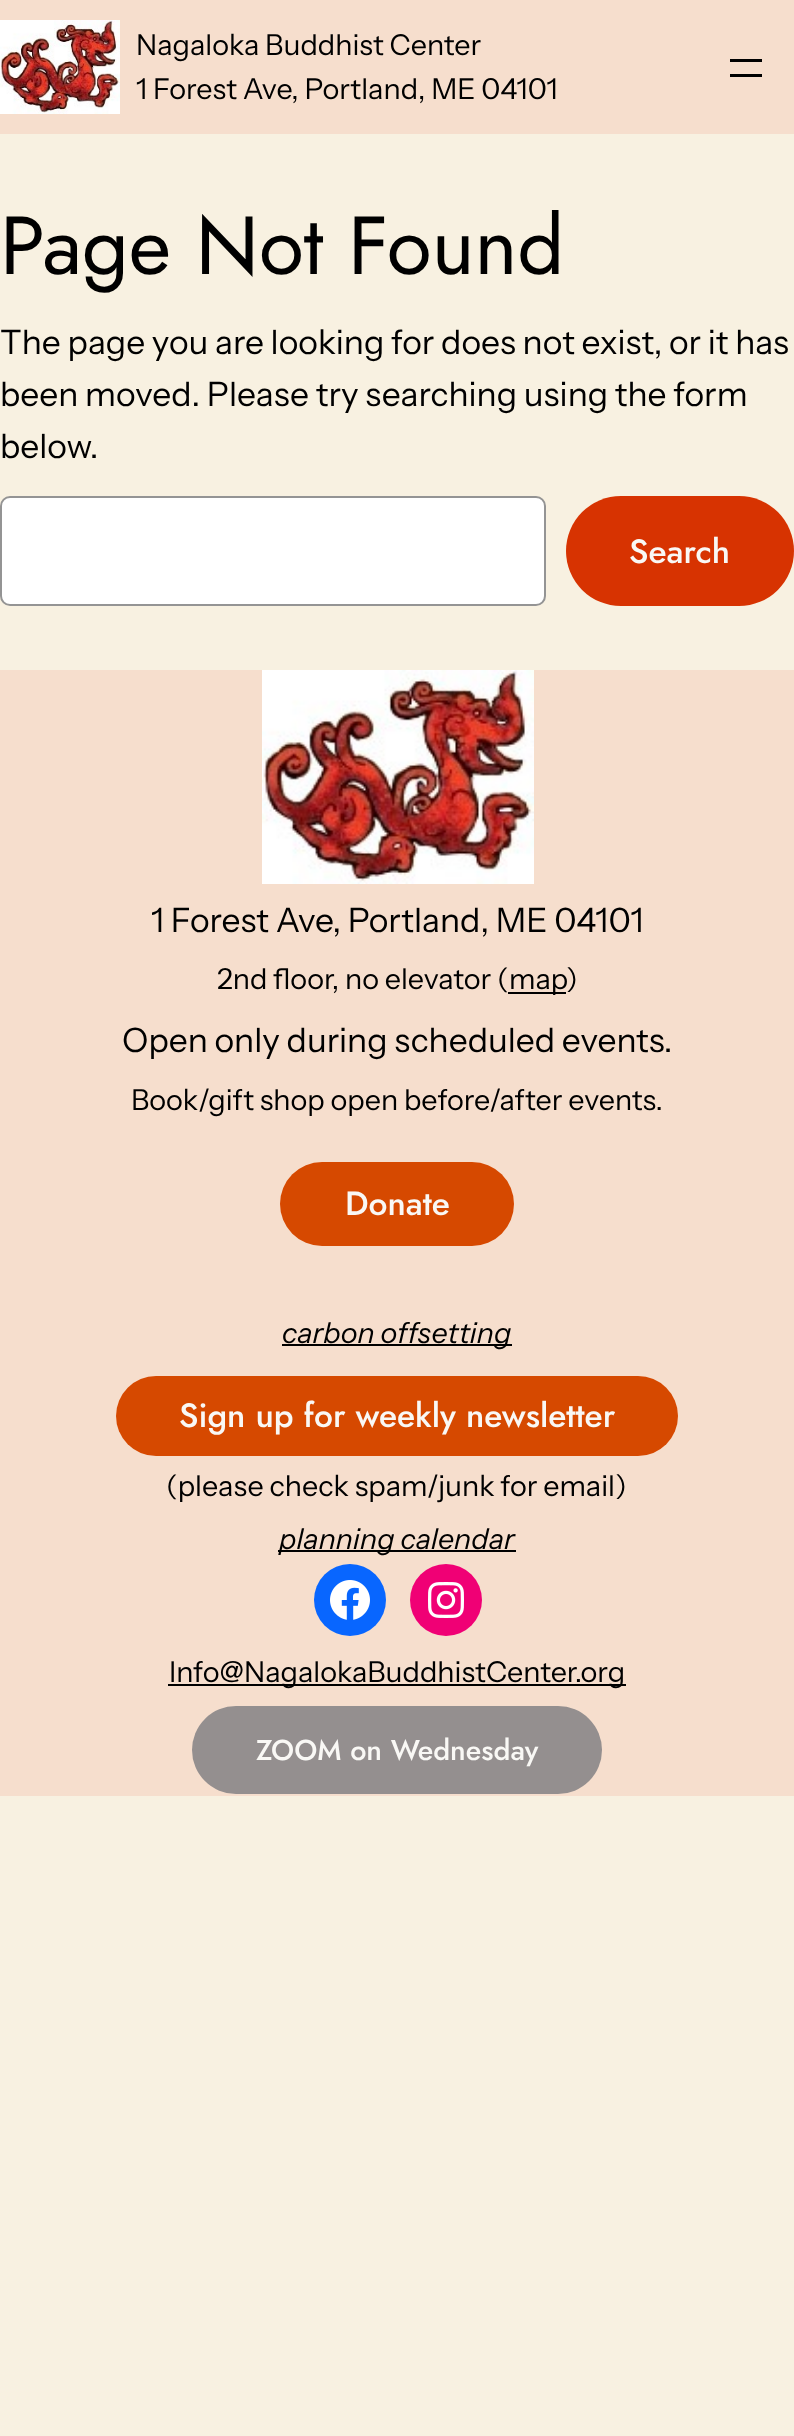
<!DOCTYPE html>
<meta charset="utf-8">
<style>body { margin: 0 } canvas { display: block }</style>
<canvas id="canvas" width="794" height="2436"></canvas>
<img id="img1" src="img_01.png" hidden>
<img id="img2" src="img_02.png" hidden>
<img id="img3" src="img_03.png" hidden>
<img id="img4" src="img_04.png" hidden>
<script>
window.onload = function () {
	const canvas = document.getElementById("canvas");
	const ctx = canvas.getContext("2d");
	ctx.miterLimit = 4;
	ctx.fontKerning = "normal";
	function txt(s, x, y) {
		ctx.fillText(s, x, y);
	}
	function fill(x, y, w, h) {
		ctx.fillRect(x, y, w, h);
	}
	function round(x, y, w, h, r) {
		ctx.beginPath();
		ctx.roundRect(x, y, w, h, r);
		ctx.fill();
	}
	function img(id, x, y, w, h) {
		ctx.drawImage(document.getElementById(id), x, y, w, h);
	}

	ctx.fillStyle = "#F8F1E1";
	fill(0, 0, 794, 2436);
	ctx.fillStyle = "#F6DECD";
	fill(0, 0, 794, 134);
	img("img1", 0, 20, 120, 94);
	ctx.fillStyle = "#000000";
	fill(730, 59, 32, 3);
	fill(730, 74, 32, 3);
	ctx.fillStyle = "#FFFFFF";
	ctx.beginPath();
	ctx.roundRect(1, 497, 544, 108, 9);
	ctx.fill();
	ctx.strokeStyle = "#949494";
	ctx.lineWidth = 2;
	ctx.stroke();
	ctx.fillStyle = "#D73301";
	round(566, 496, 228, 110, 55);
	ctx.fillStyle = "#F6DECD";
	fill(0, 670, 794, 1126);
	img("img2", 262, 670, 272, 214);
	ctx.fillStyle = "#000000";
	fill(508, 992, 58, 2);
	ctx.fillStyle = "#D64900";
	round(280, 1162, 234, 84, 42);
	ctx.fillStyle = "#000000";
	fill(282, 1344, 230, 2);
	ctx.fillStyle = "#D64900";
	round(116, 1376, 562, 80, 40);
	ctx.fillStyle = "#000000";
	fill(278, 1550, 238, 2);
	ctx.fillStyle = "#0866FF";
	ctx.beginPath();
	ctx.arc(350, 1600, 36, 0, Math.PI * 2);
	ctx.fill();
	img("img3", 330, 1580, 40, 40);
	ctx.fillStyle = "#F00075";
	ctx.beginPath();
	ctx.arc(446, 1600, 36, 0, Math.PI * 2);
	ctx.fill();
	img("img4", 428, 1582, 36, 36);
	ctx.fillStyle = "#000000";
	fill(168, 1684, 458, 2);
	ctx.fillStyle = "#948F8F";
	round(192, 1706, 410, 88, 44);
	ctx.font = "28.75px Instrument Sans";
	ctx.fillStyle = "#000000";
	txt("Nagaloka Buddhist Center", 136, 55);
	txt("1 Forest Ave, Portland, ME 04101", 136, 99);
	ctx.font = "82px Jost";
	txt("Page Not Found", 0, 274);
	ctx.font = "33.6px Instrument Sans";
	txt("The page you are looking for does not exist, or it has", 0, 354);
	txt("been moved. Please try searching using the form", 0, 406);
	txt("below.", 0, 458);
	ctx.font = "500 33.6px Jost";
	ctx.fillStyle = "#F9F8F5";
	txt("Search", 629, 563);
	ctx.font = "33.6px Instrument Sans";
	ctx.fillStyle = "#000000";
	txt("1 Forest Ave, Portland, ME 04101", 151, 932);
	ctx.font = "28.75px Instrument Sans";
	txt("2nd floor, no elevator (", 217, 989);
	txt("map", 509, 989);
	txt(")", 566, 989);
	ctx.font = "33.6px Instrument Sans";
	txt("Open only during scheduled events.", 122, 1052);
	ctx.font = "28.75px Instrument Sans";
	txt("Book/gift shop open before/after events.", 131, 1110);
	ctx.font = "500 33.6px Jost";
	ctx.fillStyle = "#F9F8F5";
	txt("Donate", 345, 1215);
	ctx.font = "italic 28.75px Instrument Sans";
	ctx.fillStyle = "#000000";
	txt("carbon offsetting", 282, 1343);
	ctx.font = "500 33.6px Jost";
	ctx.fillStyle = "#F9F8F5";
	txt("Sign up for weekly newsletter", 179, 1427);
	ctx.font = "28.75px Instrument Sans";
	ctx.fillStyle = "#000000";
	txt("(please check spam/junk for email)", 166, 1496);
	ctx.font = "italic 28.75px Instrument Sans";
	txt("planning calendar", 279, 1549);
	ctx.font = "28.75px Instrument Sans";
	txt("Info@NagalokaBuddhistCenter.org", 169, 1682);
	ctx.font = "500 28.75px Jost";
	ctx.fillStyle = "#F9F8F5";
	txt("ZOOM on Wednesday", 256, 1760);
};
</script>
